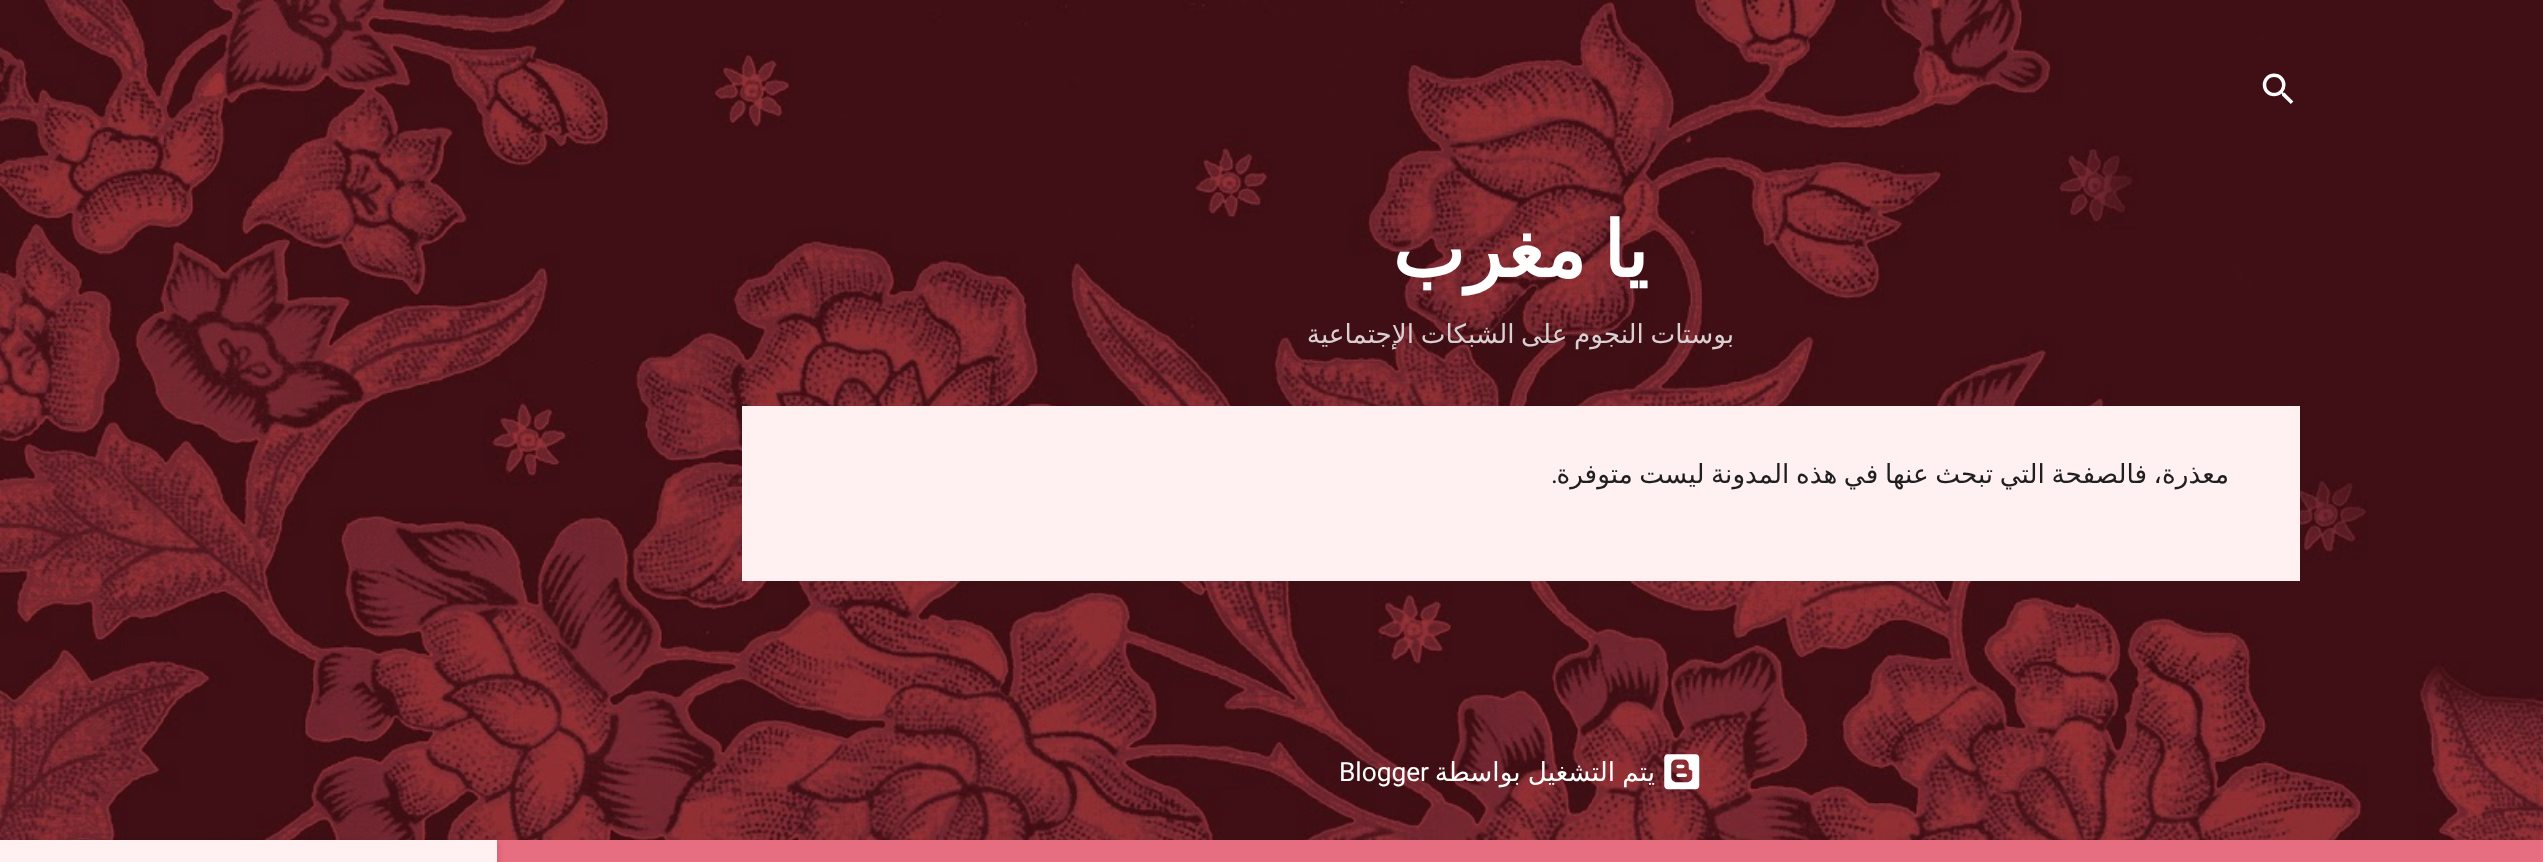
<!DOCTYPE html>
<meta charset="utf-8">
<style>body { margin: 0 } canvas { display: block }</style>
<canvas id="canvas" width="2543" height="862"></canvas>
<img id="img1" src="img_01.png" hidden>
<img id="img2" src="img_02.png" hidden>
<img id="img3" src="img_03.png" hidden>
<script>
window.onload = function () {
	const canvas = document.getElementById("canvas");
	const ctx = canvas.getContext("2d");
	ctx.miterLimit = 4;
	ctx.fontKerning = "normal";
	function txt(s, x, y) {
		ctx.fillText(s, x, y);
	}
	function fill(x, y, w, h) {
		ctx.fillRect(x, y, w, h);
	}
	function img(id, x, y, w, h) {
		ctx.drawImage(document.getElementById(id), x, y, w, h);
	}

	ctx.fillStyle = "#E76D80";
	fill(0, 0, 2543, 862);
	img("img1", 0, 0, 2543, 840);
	img("img2", 2262, 73, 32, 31);
	ctx.fillStyle = "#FFF0F2";
	fill(742, 406, 1558, 175);
	img("img3", 1664, 754, 36, 36);
	ctx.fillStyle = "rgba(0, 0, 0, 0.1)";
	ctx.filter = "blur(2.5px)";
	ctx.beginPath();
	ctx.rect(2, 842, 497, 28);
	ctx.fill();
	ctx.filter = "none";
	ctx.fillStyle = "#FFF0F2";
	fill(0, 840, 497, 22);
	ctx.wordSpacing = "-7px";
	ctx.direction = "rtl";
	ctx.font = "bold 77px DejaVu Sans";
	ctx.fillStyle = "#FFFFFF";
	txt("يا مغرب", 1648, 277);
	ctx.wordSpacing = "-1.75px";
	ctx.font = "26.25px DejaVu Sans";
	ctx.fillStyle = "#DAD0D1";
	txt("بوستات النجوم على الشبكات الإجتماعية", 1734, 343);
	ctx.fillStyle = "#201F20";
	txt("معذرة، فالصفحة التي تبحث عنها في هذه المدونة ليست متوفرة", 2229, 483);
	ctx.wordSpacing = "0px";
	ctx.font = "26.25px Roboto";
	txt(".", 1558, 483);
	ctx.wordSpacing = "-1px";
	ctx.font = "26.25px DejaVu Sans";
	ctx.fillStyle = "#FFFFFF";
	txt("يتم التشغيل بواسطة", 1655, 781);
	ctx.wordSpacing = "0px";
	ctx.direction = "ltr";
	ctx.font = "26.25px Roboto";
	txt("Blogger", 1339, 781);
};
</script>
